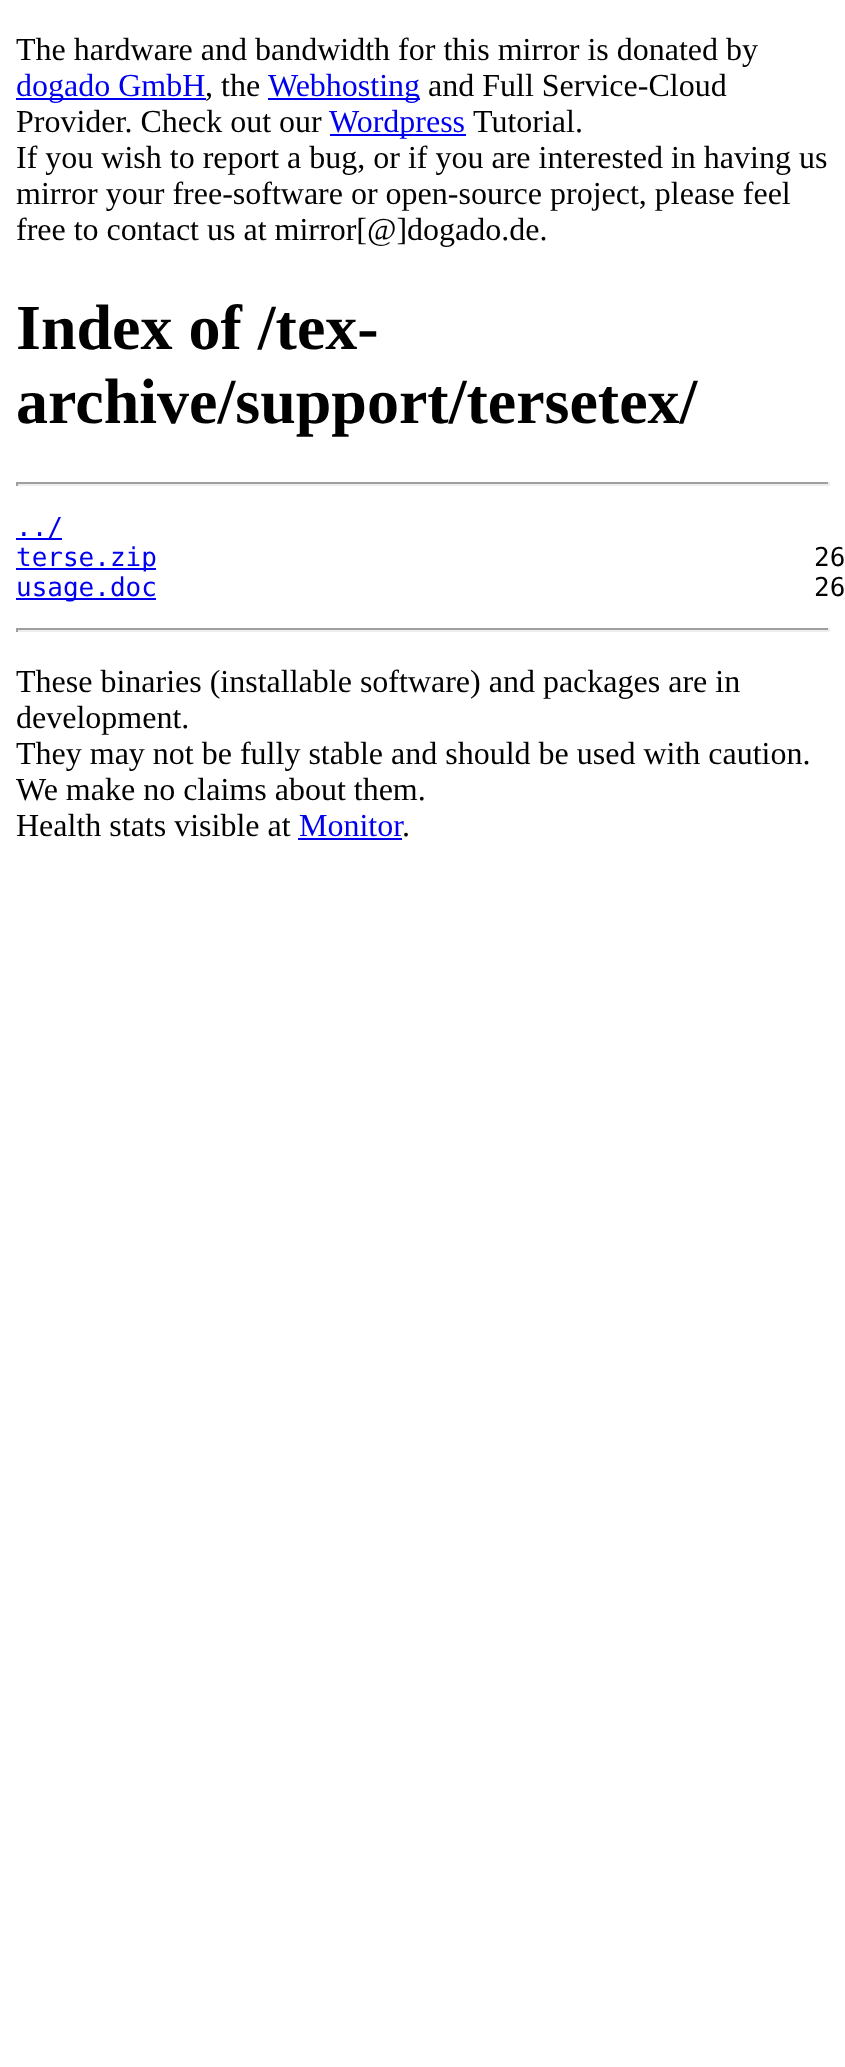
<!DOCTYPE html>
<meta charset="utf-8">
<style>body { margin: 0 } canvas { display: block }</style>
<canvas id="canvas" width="845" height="2067"></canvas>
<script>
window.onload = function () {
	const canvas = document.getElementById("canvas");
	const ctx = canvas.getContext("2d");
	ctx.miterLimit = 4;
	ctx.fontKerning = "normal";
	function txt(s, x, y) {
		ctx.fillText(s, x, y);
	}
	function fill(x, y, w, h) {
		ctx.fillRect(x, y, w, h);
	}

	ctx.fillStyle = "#FFFFFF";
	fill(0, 0, 845, 2067);
	ctx.fillStyle = "#0000EE";
	fill(16, 98, 190, 2);
	fill(268, 98, 152, 2);
	fill(330, 134, 136, 2);
	ctx.fillStyle = "#9F9F9F";
	fill(16, 482, 814, 2);
	ctx.fillStyle = "#EEEEEE";
	fill(828, 482, 2, 4);
	fill(16, 484, 814, 2);
	ctx.fillStyle = "#9F9F9F";
	fill(16, 482, 2, 4);
	ctx.fillStyle = "#0000EE";
	fill(16, 538, 46, 2);
	fill(16, 568, 140, 2);
	fill(16, 598, 140, 2);
	ctx.fillStyle = "#9F9F9F";
	fill(16, 628, 814, 2);
	ctx.fillStyle = "#EEEEEE";
	fill(828, 628, 2, 4);
	fill(16, 630, 814, 2);
	ctx.fillStyle = "#9F9F9F";
	fill(16, 628, 2, 4);
	ctx.fillStyle = "#0000EE";
	fill(298, 838, 104, 2);
	ctx.font = "32px Liberation Serif";
	ctx.fillStyle = "#000000";
	txt("The hardware and bandwidth for this mirror is donated by", 16, 60);
	ctx.fillStyle = "#0000EE";
	txt("dogado GmbH", 16, 96);
	ctx.fillStyle = "#000000";
	txt(", the", 205, 96);
	ctx.fillStyle = "#0000EE";
	txt("Webhosting", 268, 96);
	ctx.fillStyle = "#000000";
	txt("and Full Service-Cloud", 428, 96);
	txt("Provider. Check out our", 16, 132);
	ctx.fillStyle = "#0000EE";
	txt("Wordpress", 329, 132);
	ctx.fillStyle = "#000000";
	txt("Tutorial.", 473, 132);
	txt("If you wish to report a bug, or if you are interested in having us", 16, 168);
	txt("mirror your free-software or open-source project, please feel", 16, 204);
	txt("free to contact us at mirror[@]dogado.de.", 16, 240);
	ctx.font = "bold 64px Liberation Serif";
	txt("Index of /tex-", 16, 349);
	txt("archive/support/tersetex/", 16, 423);
	ctx.font = "26px DejaVu Sans Mono";
	ctx.fillStyle = "#0000EE";
	txt("../", 16, 536);
	txt("terse.zip", 16, 566);
	ctx.fillStyle = "#000000";
	txt("26", 814, 566);
	ctx.fillStyle = "#0000EE";
	txt("usage.doc", 16, 596);
	ctx.fillStyle = "#000000";
	txt("26", 814, 596);
	ctx.font = "32px Liberation Serif";
	txt("These binaries (installable software) and packages are in", 16, 692);
	txt("development.", 16, 728);
	txt("They may not be fully stable and should be used with caution.", 16, 764);
	txt("We make no claims about them.", 16, 800);
	txt("Health stats visible at", 16, 836);
	ctx.fillStyle = "#0000EE";
	txt("Monitor", 299, 836);
	ctx.fillStyle = "#000000";
	txt(".", 402, 836);
};
</script>
